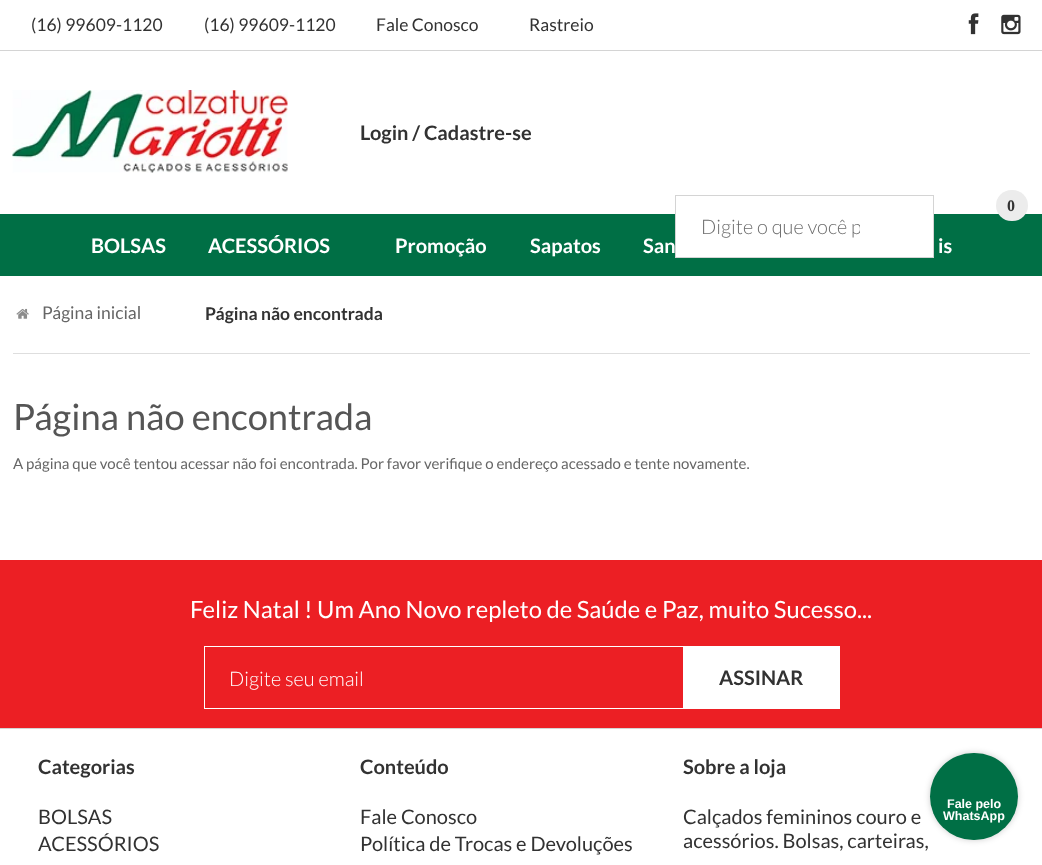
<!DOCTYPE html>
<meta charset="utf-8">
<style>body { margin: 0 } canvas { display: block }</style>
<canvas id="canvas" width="1042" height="865"></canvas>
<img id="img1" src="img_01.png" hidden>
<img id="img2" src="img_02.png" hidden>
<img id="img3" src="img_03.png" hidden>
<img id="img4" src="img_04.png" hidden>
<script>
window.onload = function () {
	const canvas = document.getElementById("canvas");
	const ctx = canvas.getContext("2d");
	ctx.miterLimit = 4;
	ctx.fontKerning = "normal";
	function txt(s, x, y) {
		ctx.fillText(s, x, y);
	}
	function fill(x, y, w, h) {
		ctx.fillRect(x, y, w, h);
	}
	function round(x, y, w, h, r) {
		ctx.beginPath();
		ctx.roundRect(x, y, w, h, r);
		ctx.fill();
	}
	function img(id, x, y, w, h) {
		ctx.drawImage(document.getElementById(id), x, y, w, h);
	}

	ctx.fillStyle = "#FFFFFF";
	fill(0, 0, 1042, 865);
	ctx.fillStyle = "#D4D4D4";
	fill(0, 50, 1042, 1);
	img("img1", 968, 13, 11, 22);
	img("img2", 1001, 14, 20, 21);
	img("img3", 12, 90, 276, 83);
	ctx.fillStyle = "#006F45";
	fill(0, 214, 1042, 62);
	ctx.fillStyle = "#ECECEC";
	round(996, 190, 32, 31, 15.5);
	ctx.fillStyle = "#FFFFFF";
	fill(676, 214, 257, 43);
	ctx.strokeStyle = "#D4D4D4";
	ctx.strokeRect(675.5, 195.5, 258, 62);
	ctx.fillStyle = "#DEDEDE";
	fill(13, 353, 1017, 1);
	img("img4", 16, 308, 13, 11);
	ctx.fillStyle = "#EC1F24";
	fill(0, 560, 1042, 168);
	ctx.strokeStyle = "#FFFFFF";
	ctx.strokeRect(204.5, 646.5, 635, 62);
	ctx.fillStyle = "#FFFFFF";
	fill(683, 647, 156, 61);
	ctx.fillStyle = "#D4D4D4";
	fill(0, 728, 1042, 1);
	ctx.fillStyle = "rgba(0, 0, 0, 0.2)";
	ctx.filter = "blur(3px)";
	ctx.beginPath();
	ctx.roundRect(930, 753, 88, 87, 43.5);
	ctx.fill();
	ctx.filter = "none";
	ctx.fillStyle = "#006F45";
	round(930, 753, 88, 87, 43.5);
	ctx.font = "17.5px Lato";
	ctx.fillStyle = "#323232";
	txt("(16) 99609-1120", 31, 31);
	txt("(16) 99609-1120", 204, 31);
	txt("Fale Conosco", 376, 31);
	txt("Rastreio", 529, 31);
	ctx.font = "bold 20px Lato";
	txt("Login / Cadastre-se", 360, 140);
	ctx.font = "bold 16px Liberation Serif";
	txt("0", 1007, 211);
	ctx.save();
	ctx.beginPath();
	ctx.rect(701, 215, 159, 24);
	ctx.clip();
	ctx.font = "300 20px Lato";
	ctx.fillStyle = "#6D6D6D";
	txt("Digite o que você p", 701, 234);
	ctx.restore();
	ctx.font = "bold 20px Lato";
	ctx.fillStyle = "#FFFFFF";
	txt("BOLSAS", 91, 253);
	txt("ACESSÓRIOS", 208, 253);
	txt("Promoção", 395, 253);
	txt("Sapatos", 530, 253);
	txt("San", 643, 253);
	txt("is", 938, 253);
	ctx.font = "17.5px Lato";
	ctx.fillStyle = "#666666";
	txt("Página inicial", 42, 319);
	ctx.font = "bold 17.5px Lato";
	ctx.fillStyle = "#323232";
	txt("Página não encontrada", 205, 320);
	ctx.font = "36.25px Lato";
	ctx.fillStyle = "#555555";
	txt("Página não encontrada", 13, 430);
	ctx.font = "15px Lato";
	ctx.fillStyle = "#666666";
	txt("A página que você tentou acessar não foi encontrada. Por favor verifique o endereço acessado e tente novamente.", 13, 469);
	ctx.font = "23.75px Lato";
	ctx.fillStyle = "#FFFFFF";
	txt("Feliz Natal ! Um Ano Novo repleto de Saúde e Paz, muito Sucesso...", 190, 618);
	ctx.font = "300 20px Lato";
	txt("Digite seu email", 229, 686);
	ctx.font = "bold 20px Lato";
	ctx.fillStyle = "#323232";
	txt("ASSINAR", 719, 685);
	txt("Categorias", 38, 774);
	ctx.font = "20px Lato";
	txt("BOLSAS", 38, 824);
	txt("ACESSÓRIOS", 38, 851);
	ctx.font = "bold 20px Lato";
	txt("Conteúdo", 360, 774);
	ctx.font = "20px Lato";
	txt("Fale Conosco", 360, 824);
	txt("Política de Trocas e Devoluções", 360, 851);
	ctx.font = "bold 20px Lato";
	txt("Sobre a loja", 683, 774);
	ctx.font = "20px Lato";
	txt("Calçados femininos couro e", 683, 824);
	txt("acessórios. Bolsas, carteiras,", 683, 848);
	ctx.font = "bold 12.5px Liberation Sans";
	ctx.fillStyle = "#FFFFFF";
	txt("Fale pelo", 947, 808);
	txt("WhatsApp", 943, 820);
};
</script>
